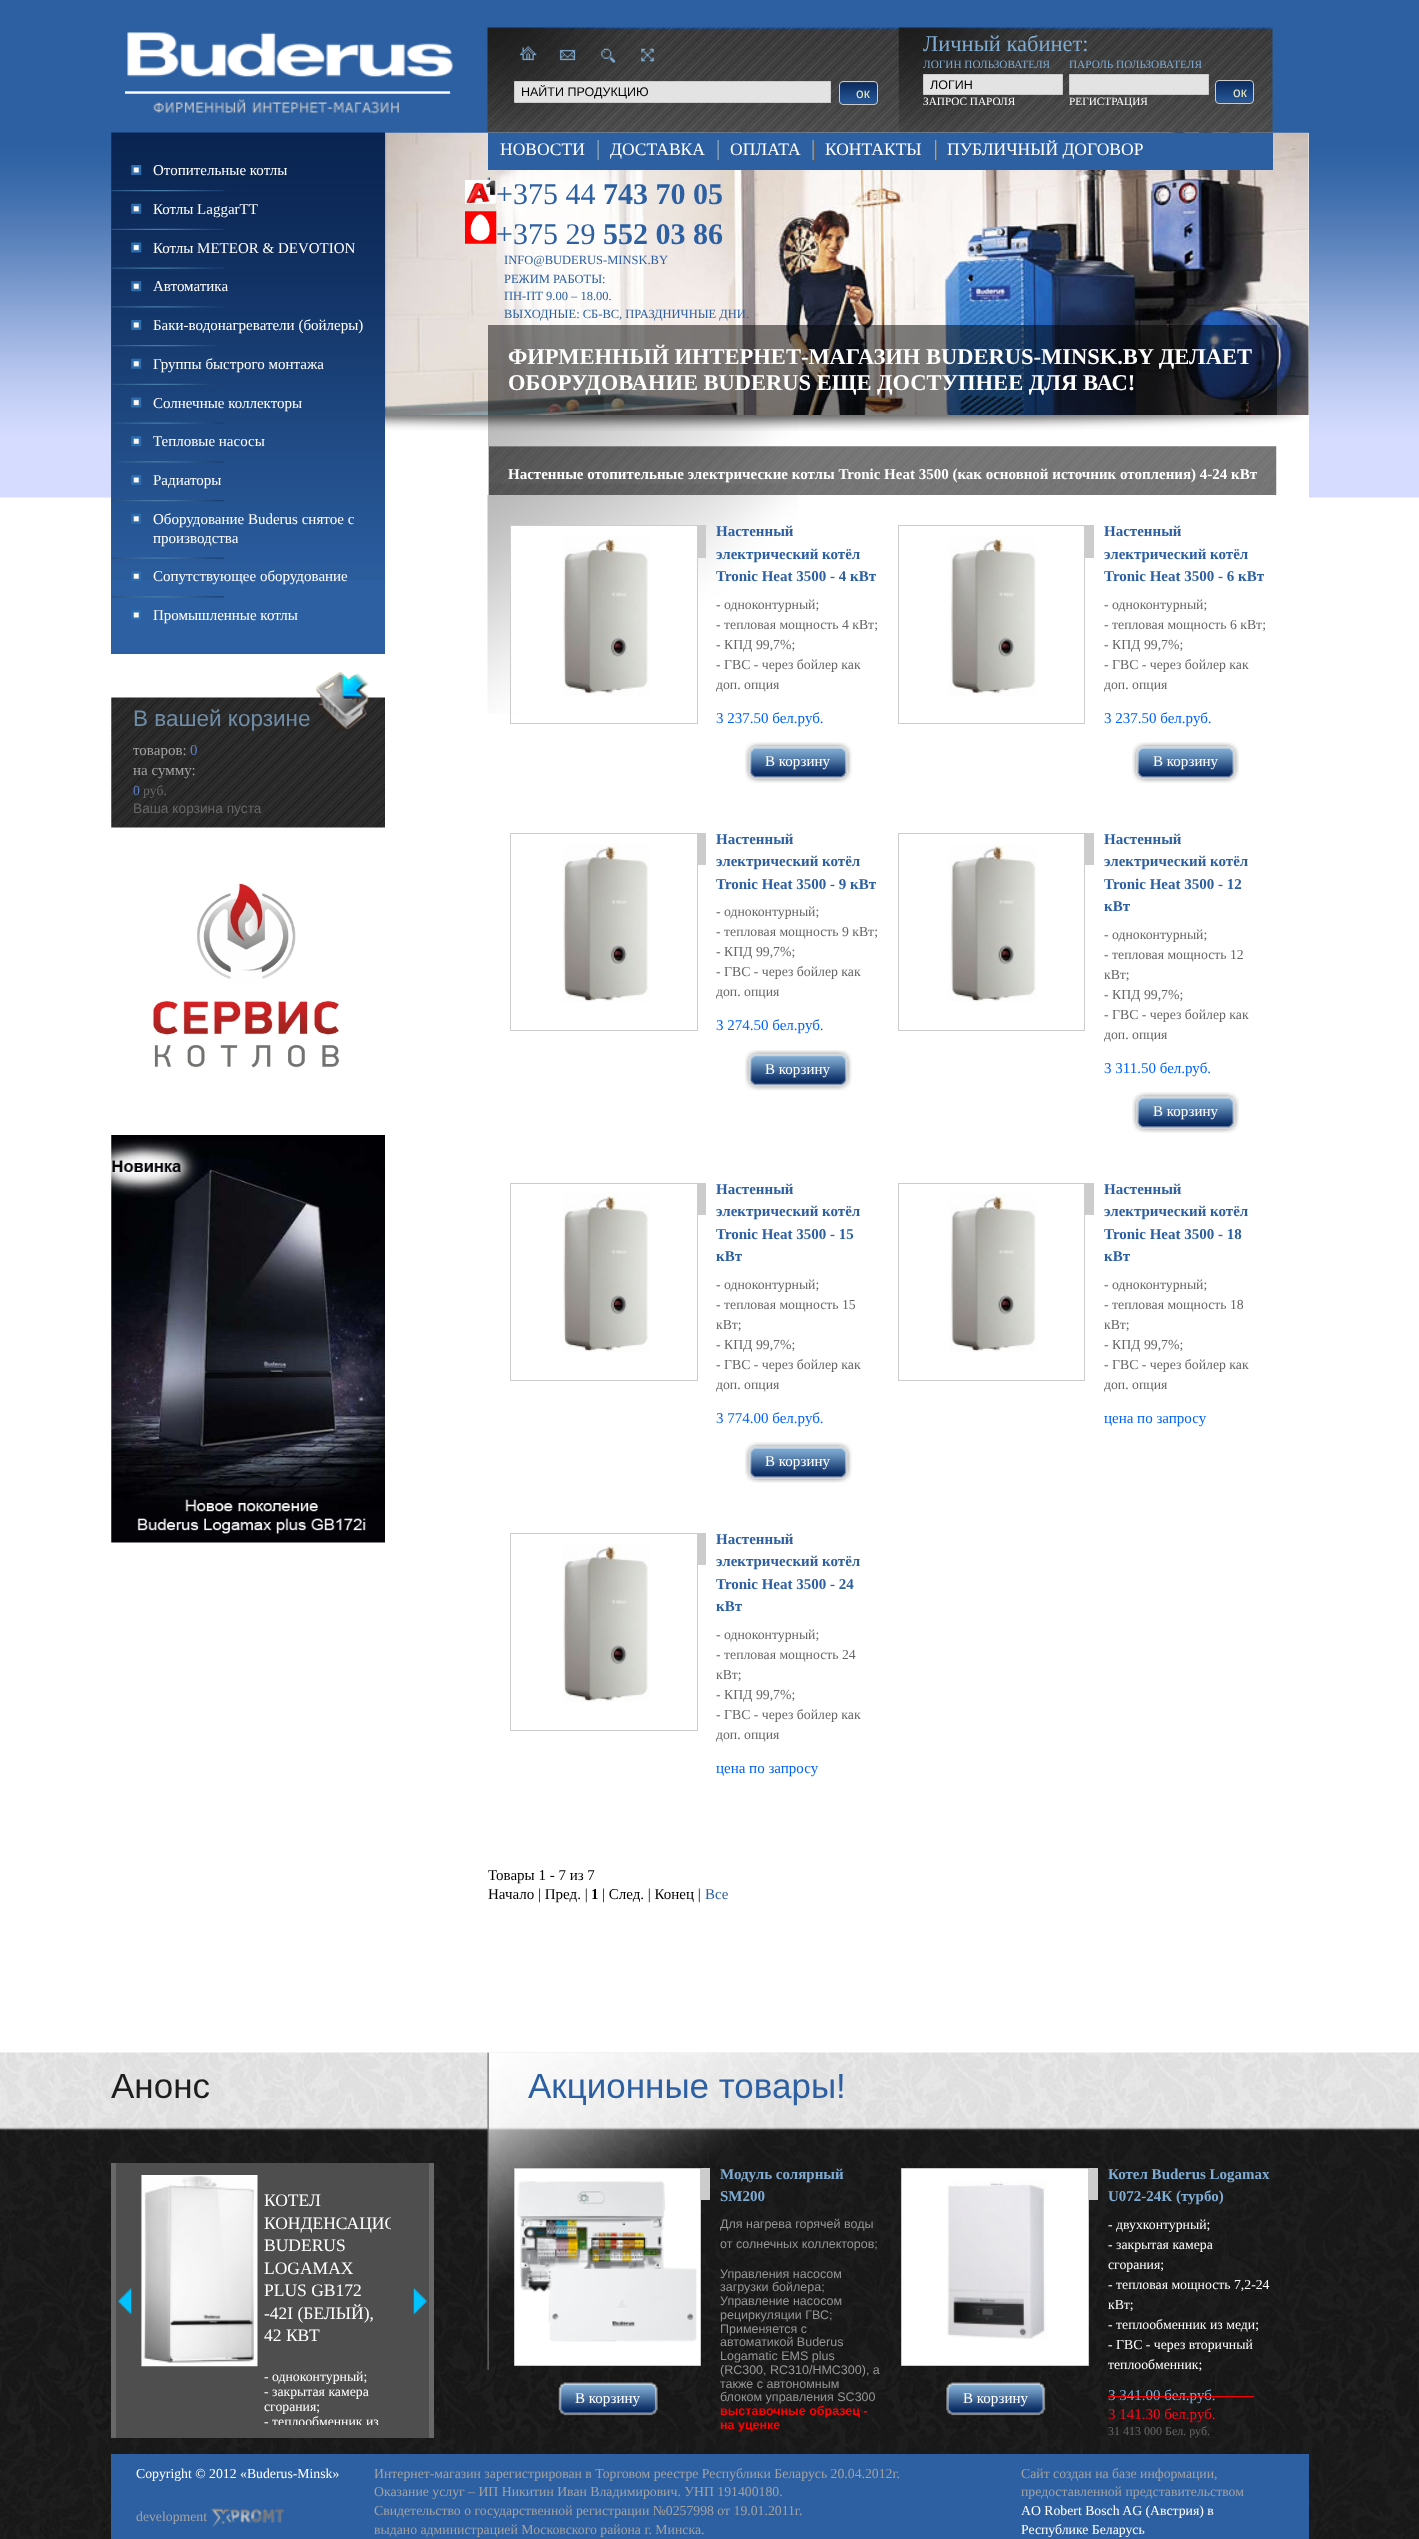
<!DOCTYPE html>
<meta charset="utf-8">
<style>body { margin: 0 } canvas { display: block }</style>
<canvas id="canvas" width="1419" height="2539"></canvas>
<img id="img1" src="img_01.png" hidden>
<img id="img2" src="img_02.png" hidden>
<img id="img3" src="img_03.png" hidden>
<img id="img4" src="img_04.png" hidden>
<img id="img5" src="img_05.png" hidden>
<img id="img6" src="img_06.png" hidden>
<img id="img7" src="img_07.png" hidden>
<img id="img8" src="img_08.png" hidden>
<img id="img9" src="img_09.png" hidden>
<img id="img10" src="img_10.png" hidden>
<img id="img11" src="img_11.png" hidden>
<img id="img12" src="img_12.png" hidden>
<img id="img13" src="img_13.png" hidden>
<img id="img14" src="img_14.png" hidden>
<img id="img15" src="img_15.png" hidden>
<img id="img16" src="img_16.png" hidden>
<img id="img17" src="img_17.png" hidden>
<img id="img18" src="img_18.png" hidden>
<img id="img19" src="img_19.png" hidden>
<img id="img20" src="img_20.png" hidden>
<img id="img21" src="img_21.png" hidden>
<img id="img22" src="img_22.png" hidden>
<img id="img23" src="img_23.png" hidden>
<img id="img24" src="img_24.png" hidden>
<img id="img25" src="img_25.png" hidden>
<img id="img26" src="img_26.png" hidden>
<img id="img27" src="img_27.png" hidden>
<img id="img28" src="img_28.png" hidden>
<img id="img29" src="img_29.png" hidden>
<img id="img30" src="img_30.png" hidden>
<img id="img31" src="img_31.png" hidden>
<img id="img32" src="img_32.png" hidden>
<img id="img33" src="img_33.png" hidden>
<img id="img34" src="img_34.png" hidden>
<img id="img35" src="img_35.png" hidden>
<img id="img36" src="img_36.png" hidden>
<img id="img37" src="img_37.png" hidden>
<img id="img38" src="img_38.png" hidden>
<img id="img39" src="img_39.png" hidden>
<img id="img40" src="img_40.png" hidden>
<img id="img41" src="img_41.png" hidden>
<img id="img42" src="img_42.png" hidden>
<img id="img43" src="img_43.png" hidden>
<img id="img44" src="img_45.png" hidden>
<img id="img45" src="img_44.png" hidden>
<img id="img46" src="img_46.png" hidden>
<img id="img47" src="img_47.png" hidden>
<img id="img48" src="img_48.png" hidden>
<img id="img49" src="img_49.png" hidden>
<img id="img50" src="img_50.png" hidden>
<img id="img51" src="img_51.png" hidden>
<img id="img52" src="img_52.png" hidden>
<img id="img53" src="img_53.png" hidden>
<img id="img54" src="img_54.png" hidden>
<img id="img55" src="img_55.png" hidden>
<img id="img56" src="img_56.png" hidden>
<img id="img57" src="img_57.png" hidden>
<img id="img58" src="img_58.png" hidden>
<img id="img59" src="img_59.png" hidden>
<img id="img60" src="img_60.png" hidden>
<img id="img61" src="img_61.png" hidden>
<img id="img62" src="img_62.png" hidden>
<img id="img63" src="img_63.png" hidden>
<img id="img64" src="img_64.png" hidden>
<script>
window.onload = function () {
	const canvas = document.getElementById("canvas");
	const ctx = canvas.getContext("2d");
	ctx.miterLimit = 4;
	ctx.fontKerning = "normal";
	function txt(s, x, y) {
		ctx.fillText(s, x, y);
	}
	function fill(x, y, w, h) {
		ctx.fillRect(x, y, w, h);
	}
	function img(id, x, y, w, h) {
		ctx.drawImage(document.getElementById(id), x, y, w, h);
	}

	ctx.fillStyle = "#FFFFFF";
	fill(0, 0, 1419, 2539);
	img("img1", 0, 0, 1419, 498);
	img("img2", 487, 27, 786, 106);
	img("img3", 125, 32, 328, 82);
	img("img4", 519, 46, 18, 15);
	img("img5", 559, 49, 17, 12);
	img("img6", 601, 48, 15, 15);
	img("img7", 641, 48, 13, 14);
	ctx.fillStyle = "#E3E3E3";
	ctx.beginPath();
	ctx.rect(923.5, 74.5, 139, 20);
	ctx.fill();
	ctx.strokeStyle = "#CCCCCC";
	ctx.stroke();
	ctx.beginPath();
	ctx.rect(1069.5, 74.5, 139, 20);
	ctx.fill();
	ctx.stroke();
	img("img8", 1215, 81, 39, 22);
	ctx.beginPath();
	ctx.roundRect(1215.5, 80.5, 38, 23, 3.5);
	ctx.stroke();
	ctx.beginPath();
	ctx.rect(514.5, 81.5, 316, 21);
	ctx.fill();
	ctx.stroke();
	img("img9", 838, 82, 40, 22);
	ctx.beginPath();
	ctx.roundRect(839.5, 81.5, 38, 23, 3.5);
	ctx.stroke();
	ctx.fillStyle = "#2D60A2";
	fill(111, 155, 274, 499);
	img("img10", 111, 132, 274, 448);
	img("img11", 131, 165, 11, 10);
	img("img12", 111, 190, 113, 2);
	img("img13", 131, 203, 11, 11);
	img("img14", 111, 228, 113, 2);
	img("img15", 131, 242, 11, 11);
	img("img16", 111, 267, 113, 2);
	img("img17", 131, 281, 11, 11);
	img("img18", 111, 306, 113, 2);
	img("img19", 131, 320, 11, 10);
	img("img20", 111, 345, 107, 2);
	img("img21", 131, 358, 11, 11);
	img("img22", 112, 383, 112, 2);
	img("img23", 131, 397, 11, 11);
	img("img24", 111, 422, 113, 2);
	img("img25", 131, 436, 11, 11);
	img("img26", 111, 461, 113, 2);
	img("img27", 131, 475, 11, 10);
	img("img28", 111, 500, 113, 2);
	img("img29", 131, 513, 11, 11);
	img("img30", 111, 557, 113, 2);
	img("img31", 131, 571, 11, 10);
	img("img32", 111, 596, 113, 2);
	img("img33", 131, 610, 10, 10);
	img("img34", 111, 697, 274, 131);
	img("img35", 316, 672, 53, 60);
	img("img36", 152, 883, 187, 185);
	img("img37", 111, 1135, 274, 408);
	ctx.fillStyle = "#FFFFFF";
	fill(385, 133, 924, 365);
	img("img38", 385, 132, 924, 283);
	ctx.fillStyle = "#2D60A2";
	fill(488, 133, 785, 37);
	img("img39", 597, 140, 3, 22);
	img("img39", 717, 140, 3, 22);
	img("img39", 812, 140, 3, 22);
	img("img40", 935, 140, 3, 22);
	img("img41", 487, 177, 3, 3);
	img("img42", 465, 180, 32, 24);
	img("img43", 465, 211, 32, 33);
	ctx.fillStyle = "rgba(0, 0, 0, 0.5)";
	fill(488, 325, 789, 90);
	img("img44", 489, 415, 310, 32);
	ctx.fillStyle = "#BEBEBE";
	fill(488, 415, 1, 31);
	img("img45", 385, 415, 918, 16);
	img("img46", 489, 446, 788, 49);
	ctx.fillStyle = "#C2C2C2";
	fill(488, 446, 1, 49);
	img("img47", 487, 495, 311, 219);
	ctx.fillStyle = "#FFFFFF";
	fill(511, 526, 186, 186);
	ctx.strokeRect(510.5, 525.5, 187, 198);
	img("img48", 563, 536, 87, 160);
	ctx.fillStyle = "#CCCCCC";
	fill(698, 525, 8, 33);
	img("img49", 745, 742, 107, 41);
	ctx.strokeRect(898.5, 525.5, 186, 198);
	img("img50", 949, 536, 87, 160);
	fill(1085, 525, 9, 33);
	img("img51", 1132, 742, 107, 41);
	ctx.strokeRect(510.5, 833.5, 187, 197);
	img("img52", 563, 843, 87, 159);
	fill(698, 833, 8, 32);
	img("img53", 745, 1050, 107, 41);
	ctx.strokeRect(898.5, 833.5, 186, 197);
	img("img54", 949, 844, 88, 158);
	fill(1085, 833, 9, 32);
	img("img51", 1132, 1092, 107, 41);
	ctx.strokeRect(510.5, 1183.5, 187, 197);
	img("img52", 563, 1193, 87, 159);
	fill(698, 1183, 8, 32);
	img("img49", 745, 1442, 107, 41);
	ctx.strokeRect(898.5, 1183.5, 186, 197);
	img("img54", 949, 1194, 88, 158);
	fill(1085, 1183, 9, 32);
	ctx.strokeRect(510.5, 1533.5, 187, 197);
	img("img52", 563, 1543, 87, 159);
	fill(698, 1533, 8, 32);
	img("img55", 0, 2052, 1419, 487);
	ctx.fillStyle = "#4E4E4E";
	fill(116, 2163, 313, 275);
	ctx.fillStyle = "#686868";
	fill(429, 2163, 5, 275);
	fill(111, 2163, 5, 275);
	img("img56", 117, 2287, 15, 28);
	img("img57", 141, 2175, 117, 192);
	img("img58", 413, 2287, 15, 28);
	img("img59", 487, 2052, 313, 318);
	ctx.fillStyle = "#FFFFFF";
	ctx.beginPath();
	ctx.rect(514.5, 2168.5, 186, 197);
	ctx.fill();
	ctx.stroke();
	img("img60", 517, 2181, 180, 161);
	ctx.fillStyle = "#CCCCCC";
	fill(701, 2168, 9, 32);
	img("img61", 557, 2381, 102, 36);
	ctx.fillStyle = "#FFFFFF";
	ctx.beginPath();
	ctx.rect(901.5, 2168.5, 187, 197);
	ctx.fill();
	ctx.stroke();
	img("img62", 947, 2180, 101, 159);
	ctx.fillStyle = "#CCCCCC";
	fill(1089, 2168, 9, 32);
	img("img63", 945, 2381, 101, 36);
	ctx.fillStyle = "#2C60A2";
	fill(111, 2454, 1198, 85);
	img("img64", 211, 2508, 73, 20);
	ctx.font = "22.5px Liberation Serif";
	ctx.fillStyle = "#80ACD3";
	txt("Личный кабинет:", 923, 51);
	ctx.font = "11.25px Liberation Serif";
	txt("ЛОГИН ПОЛЬЗОВАТЕЛЯ", 923, 68);
	ctx.font = "12.5px Liberation Sans";
	ctx.fillStyle = "#000000";
	txt("ЛОГИН", 930, 89);
	ctx.font = "11.25px Liberation Serif";
	ctx.fillStyle = "#FFFFFF";
	txt("ЗАПРОС ПАРОЛЯ", 923, 105);
	ctx.fillStyle = "#80ACD3";
	txt("ПАРОЛЬ ПОЛЬЗОВАТЕЛЯ", 1069, 68);
	ctx.fillStyle = "#FFFFFF";
	txt("РЕГИСТРАЦИЯ", 1069, 105);
	ctx.font = "13.75px Liberation Sans";
	ctx.fillStyle = "#E5E7BF";
	txt("ок", 1233, 97);
	ctx.save();
	ctx.beginPath();
	ctx.rect(521, 85, 303, 14);
	ctx.clip();
	ctx.font = "12.5px Liberation Sans";
	ctx.fillStyle = "#000000";
	txt("НАЙТИ ПРОДУКЦИЮ", 521, 96);
	ctx.restore();
	txt("ок", 856, 98);
	ctx.font = "15px Liberation Serif";
	ctx.fillStyle = "#FFFFFF";
	txt("Отопительные котлы", 153, 175);
	txt("Котлы LaggarTT", 153, 214);
	txt("Котлы METEOR & DEVOTION", 153, 253);
	txt("Автоматика", 153, 291);
	txt("Баки-водонагреватели (бойлеры)", 153, 330);
	txt("Группы быстрого монтажа", 153, 369);
	txt("Солнечные коллекторы", 153, 408);
	txt("Тепловые насосы", 153, 446);
	txt("Радиаторы", 153, 485);
	txt("Оборудование Buderus снятое с", 153, 524);
	txt("производства", 153, 543);
	txt("Сопутствующее оборудование", 153, 581);
	txt("Промышленные котлы", 153, 620);
	ctx.font = "22.5px Liberation Sans";
	ctx.fillStyle = "#708DA7";
	txt("В вашей корзине", 133, 726);
	ctx.font = "15px Liberation Serif";
	ctx.fillStyle = "#A2A2A2";
	txt("товаров:", 133, 755);
	ctx.fillStyle = "#5E80C5";
	txt("0", 190, 755);
	ctx.fillStyle = "#A2A2A2";
	txt("на сумму:", 133, 775);
	ctx.font = "13.75px Liberation Serif";
	ctx.fillStyle = "#5E80C5";
	txt("0", 133, 795);
	ctx.fillStyle = "#666666";
	txt("руб.", 143, 795);
	ctx.font = "13.75px Liberation Sans";
	txt("Ваша корзина пуста", 133, 813);
	ctx.font = "17.5px Liberation Serif";
	ctx.fillStyle = "#FFFFFF";
	txt("НОВОСТИ", 500, 155);
	txt("ДОСТАВКА", 610, 155);
	txt("ОПЛАТА", 730, 155);
	txt("КОНТАКТЫ", 825, 155);
	txt("ПУБЛИЧНЫЙ ДОГОВОР", 947, 155);
	ctx.font = "30px Liberation Serif";
	ctx.fillStyle = "#2D60A2";
	txt("+375 44", 496, 204);
	ctx.font = "bold 30px Liberation Serif";
	txt("743 70 05", 603, 204);
	ctx.font = "30px Liberation Serif";
	txt("+375 29", 496, 244);
	ctx.font = "bold 30px Liberation Serif";
	txt("552 03 86", 603, 244);
	ctx.font = "12.5px Liberation Serif";
	txt("INFO@BUDERUS-MINSK.BY", 504, 264);
	txt("РЕЖИМ РАБОТЫ:", 504, 283);
	txt("ПН-ПТ 9.00 – 18.00.", 504, 300);
	txt("ВЫХОДНЫЕ: СБ-ВС, ПРАЗДНИЧНЫЕ ДНИ.", 504, 318);
	ctx.font = "bold 22.5px Liberation Serif";
	ctx.fillStyle = "#FFFFFF";
	txt("ФИРМЕННЫЙ ИНТЕРНЕТ-МАГАЗИН BUDERUS-MINSK.BY ДЕЛАЕТ", 508, 364);
	txt("ОБОРУДОВАНИЕ BUDERUS ЕЩЕ ДОСТУПНЕЕ ДЛЯ ВАС!", 508, 390);
	ctx.font = "bold 15px Liberation Serif";
	txt("Настенные отопительные электрические котлы Tronic Heat 3500 (как основной источник отопления) 4-24 кВт", 508, 479);
	ctx.fillStyle = "#2D60A2";
	txt("Настенный", 716, 536);
	txt("электрический котёл", 716, 559);
	txt("Tronic Heat 3500 - 4 кВт", 716, 581);
	ctx.font = "13.75px Liberation Serif";
	ctx.fillStyle = "#666666";
	txt("- одноконтурный;", 716, 609);
	txt("- тепловая мощность 4 кВт;", 716, 629);
	txt("- КПД 99,7%;", 716, 649);
	txt("- ГВС - через бойлер как", 716, 669);
	txt("доп. опция", 716, 689);
	ctx.font = "15px Liberation Serif";
	ctx.fillStyle = "#0163F7";
	txt("3 237.50 бел.руб.", 716, 723);
	ctx.fillStyle = "#FFFFFF";
	txt("В корзину", 765, 766);
	ctx.font = "bold 15px Liberation Serif";
	ctx.fillStyle = "#2D60A2";
	txt("Настенный", 1104, 536);
	txt("электрический котёл", 1104, 559);
	txt("Tronic Heat 3500 - 6 кВт", 1104, 581);
	ctx.font = "13.75px Liberation Serif";
	ctx.fillStyle = "#666666";
	txt("- одноконтурный;", 1104, 609);
	txt("- тепловая мощность 6 кВт;", 1104, 629);
	txt("- КПД 99,7%;", 1104, 649);
	txt("- ГВС - через бойлер как", 1104, 669);
	ctx.save();
	ctx.beginPath();
	ctx.rect(1104, 520, 162, 276);
	ctx.clip();
	txt("доп. опция", 1104, 689);
	ctx.restore();
	ctx.font = "15px Liberation Serif";
	ctx.fillStyle = "#0163F7";
	txt("3 237.50 бел.руб.", 1104, 723);
	ctx.fillStyle = "#FFFFFF";
	txt("В корзину", 1153, 766);
	ctx.font = "bold 15px Liberation Serif";
	ctx.fillStyle = "#2D60A2";
	txt("Настенный", 716, 844);
	txt("электрический котёл", 716, 866);
	txt("Tronic Heat 3500 - 9 кВт", 716, 889);
	ctx.font = "13.75px Liberation Serif";
	ctx.fillStyle = "#666666";
	txt("- одноконтурный;", 716, 916);
	txt("- тепловая мощность 9 кВт;", 716, 936);
	txt("- КПД 99,7%;", 716, 956);
	txt("- ГВС - через бойлер как", 716, 976);
	txt("доп. опция", 716, 996);
	ctx.font = "15px Liberation Serif";
	ctx.fillStyle = "#0163F7";
	txt("3 274.50 бел.руб.", 716, 1030);
	ctx.fillStyle = "#FFFFFF";
	txt("В корзину", 765, 1074);
	ctx.font = "bold 15px Liberation Serif";
	ctx.fillStyle = "#2D60A2";
	txt("Настенный", 1104, 844);
	txt("электрический котёл", 1104, 866);
	txt("Tronic Heat 3500 - 12", 1104, 889);
	txt("кВт", 1104, 911);
	ctx.font = "13.75px Liberation Serif";
	ctx.fillStyle = "#666666";
	txt("- одноконтурный;", 1104, 939);
	txt("- тепловая мощность 12", 1104, 959);
	txt("кВт;", 1104, 979);
	txt("- КПД 99,7%;", 1104, 999);
	txt("- ГВС - через бойлер как", 1104, 1019);
	ctx.save();
	ctx.beginPath();
	ctx.rect(1104, 828, 162, 318);
	ctx.clip();
	txt("доп. опция", 1104, 1039);
	ctx.restore();
	ctx.font = "15px Liberation Serif";
	ctx.fillStyle = "#0163F7";
	txt("3 311.50 бел.руб.", 1104, 1073);
	ctx.fillStyle = "#FFFFFF";
	txt("В корзину", 1153, 1116);
	ctx.font = "bold 15px Liberation Serif";
	ctx.fillStyle = "#2D60A2";
	txt("Настенный", 716, 1194);
	txt("электрический котёл", 716, 1216);
	txt("Tronic Heat 3500 - 15", 716, 1239);
	txt("кВт", 716, 1261);
	ctx.font = "13.75px Liberation Serif";
	ctx.fillStyle = "#666666";
	txt("- одноконтурный;", 716, 1289);
	txt("- тепловая мощность 15", 716, 1309);
	txt("кВт;", 716, 1329);
	txt("- КПД 99,7%;", 716, 1349);
	txt("- ГВС - через бойлер как", 716, 1369);
	txt("доп. опция", 716, 1389);
	ctx.font = "15px Liberation Serif";
	ctx.fillStyle = "#0163F7";
	txt("3 774.00 бел.руб.", 716, 1423);
	ctx.fillStyle = "#FFFFFF";
	txt("В корзину", 765, 1466);
	ctx.font = "bold 15px Liberation Serif";
	ctx.fillStyle = "#2D60A2";
	txt("Настенный", 1104, 1194);
	txt("электрический котёл", 1104, 1216);
	txt("Tronic Heat 3500 - 18", 1104, 1239);
	txt("кВт", 1104, 1261);
	ctx.font = "13.75px Liberation Serif";
	ctx.fillStyle = "#666666";
	txt("- одноконтурный;", 1104, 1289);
	txt("- тепловая мощность 18", 1104, 1309);
	txt("кВт;", 1104, 1329);
	txt("- КПД 99,7%;", 1104, 1349);
	txt("- ГВС - через бойлер как", 1104, 1369);
	ctx.save();
	ctx.beginPath();
	ctx.rect(1104, 1178, 162, 263);
	ctx.clip();
	txt("доп. опция", 1104, 1389);
	ctx.restore();
	ctx.font = "15px Liberation Serif";
	ctx.fillStyle = "#0163F7";
	txt("цена по запросу", 1104, 1423);
	ctx.font = "bold 15px Liberation Serif";
	ctx.fillStyle = "#2D60A2";
	txt("Настенный", 716, 1544);
	txt("электрический котёл", 716, 1566);
	txt("Tronic Heat 3500 - 24", 716, 1589);
	txt("кВт", 716, 1611);
	ctx.font = "13.75px Liberation Serif";
	ctx.fillStyle = "#666666";
	txt("- одноконтурный;", 716, 1639);
	txt("- тепловая мощность 24", 716, 1659);
	txt("кВт;", 716, 1679);
	txt("- КПД 99,7%;", 716, 1699);
	txt("- ГВС - через бойлер как", 716, 1719);
	txt("доп. опция", 716, 1739);
	ctx.font = "15px Liberation Serif";
	ctx.fillStyle = "#0163F7";
	txt("цена по запросу", 716, 1773);
	ctx.fillStyle = "#000000";
	txt("Товары 1 - 7 из 7", 488, 1880);
	txt("Начало | Пред. |", 488, 1899);
	ctx.font = "bold 15px Liberation Serif";
	txt("1", 591, 1899);
	ctx.font = "15px Liberation Serif";
	txt("| След. | Конец |", 602, 1899);
	ctx.fillStyle = "#2D60A2";
	txt("Все", 705, 1899);
	ctx.font = "35px Liberation Sans";
	ctx.fillStyle = "#1D1D1D";
	txt("Анонс", 111, 2098);
	ctx.font = "17.5px Liberation Serif";
	ctx.fillStyle = "#FFFFFF";
	txt("КОТЕЛ", 264, 2206);
	ctx.save();
	ctx.beginPath();
	ctx.rect(264, 2175, 127, 250);
	ctx.clip();
	txt("КОНДЕНСАЦИО", 264, 2229);
	ctx.restore();
	txt("BUDERUS", 264, 2251);
	txt("LOGAMAX", 264, 2274);
	txt("PLUS GB172", 264, 2296);
	txt("-42I (БЕЛЫЙ),", 264, 2319);
	txt("42 КВТ", 264, 2341);
	ctx.font = "13.75px Liberation Serif";
	txt("- одноконтурный;", 264, 2381);
	txt("- закрытая камера", 264, 2396);
	txt("сгорания;", 264, 2411);
	ctx.save();
	ctx.beginPath();
	ctx.rect(264, 2175, 127, 250);
	ctx.clip();
	txt("- теплообменник из", 264, 2426);
	ctx.restore();
	ctx.font = "35px Liberation Sans";
	ctx.fillStyle = "#2D60A2";
	txt("Акционные товары!", 528, 2098);
	ctx.font = "15px Liberation Serif";
	ctx.fillStyle = "#FFFFFF";
	txt("В корзину", 575, 2403);
	ctx.font = "bold 15px Liberation Serif";
	ctx.fillStyle = "#80ACD3";
	txt("Модуль солярный", 720, 2179);
	txt("SM200", 720, 2201);
	ctx.font = "12.5px Liberation Sans";
	ctx.fillStyle = "#959595";
	txt("Для нагрева горячей воды", 720, 2228);
	txt("от солнечных коллекторов;", 720, 2248);
	txt("Управления насосом", 720, 2278);
	txt("загрузки бойлера;", 720, 2291);
	txt("Управление насосом", 720, 2305);
	txt("рециркуляции ГВС;", 720, 2319);
	txt("Применяется с", 720, 2333);
	txt("автоматикой Buderus", 720, 2346);
	txt("Logamatic EMS plus", 720, 2360);
	txt("(RC300, RC310/HMC300), а", 720, 2374);
	txt("также с автономным", 720, 2388);
	txt("блоком управления SC300", 720, 2401);
	ctx.font = "bold 12.5px Liberation Sans";
	ctx.fillStyle = "#FF0000";
	txt("выставочные образец -", 720, 2415);
	txt("на уценке", 720, 2429);
	ctx.font = "15px Liberation Serif";
	ctx.fillStyle = "#FFFFFF";
	txt("В корзину", 963, 2403);
	ctx.font = "bold 15px Liberation Serif";
	ctx.fillStyle = "#80ACD3";
	txt("Котел Buderus Logamax", 1108, 2179);
	txt("U072-24К (турбо)", 1108, 2201);
	ctx.font = "13.75px Liberation Serif";
	ctx.fillStyle = "#FFFFFF";
	txt("- двухконтурный;", 1108, 2229);
	txt("- закрытая камера", 1108, 2249);
	txt("сгорания;", 1108, 2269);
	txt("- тепловая мощность 7,2-24", 1108, 2289);
	txt("кВт;", 1108, 2309);
	txt("- теплообменник из меди;", 1108, 2329);
	txt("- ГВС - через вторичный", 1108, 2349);
	ctx.save();
	ctx.beginPath();
	ctx.rect(1108, 2163, 162, 287);
	ctx.clip();
	txt("теплообменник;", 1108, 2369);
	ctx.restore();
	ctx.font = "15px Liberation Serif";
	ctx.fillStyle = "#80ACD3";
	txt("3 341.00 бел.руб.", 1108, 2400);
	ctx.fillStyle = "#FF0000";
	fill(1108, 2396, 146, 1);
	ctx.fillStyle = "#FF091A";
	txt("3 141.30 бел.руб.", 1108, 2419);
	ctx.font = "12px Liberation Serif";
	ctx.fillStyle = "#666666";
	txt("31 413 000 Бел. руб.", 1108, 2435);
	ctx.font = "13.75px Liberation Serif";
	ctx.fillStyle = "#FFFFFF";
	txt("Copyright © 2012 «Buderus-Minsk»", 136, 2478);
	ctx.fillStyle = "#A2A2A2";
	txt("development", 136, 2521);
	txt("Интернет-магазин зарегистрирован в Торговом реестре Республики Беларусь 20.04.2012г.", 374, 2478);
	txt("Оказание услуг – ИП Никитин Иван Владимирович. УНП 191400180.", 374, 2496);
	txt("Свидетельство о государственной регистрации №0257998 от 19.01.2011г.", 374, 2515);
	txt("выдано администрацией Московского района г. Минска.", 374, 2534);
	txt("Сайт создан на базе информации,", 1021, 2478);
	txt("предоставленной представительством", 1021, 2496);
	ctx.fillStyle = "#FFFFFF";
	txt("AO Robert Bosch AG (Австрия) в", 1021, 2515);
	txt("Республике Беларусь", 1021, 2534);
};
</script>
